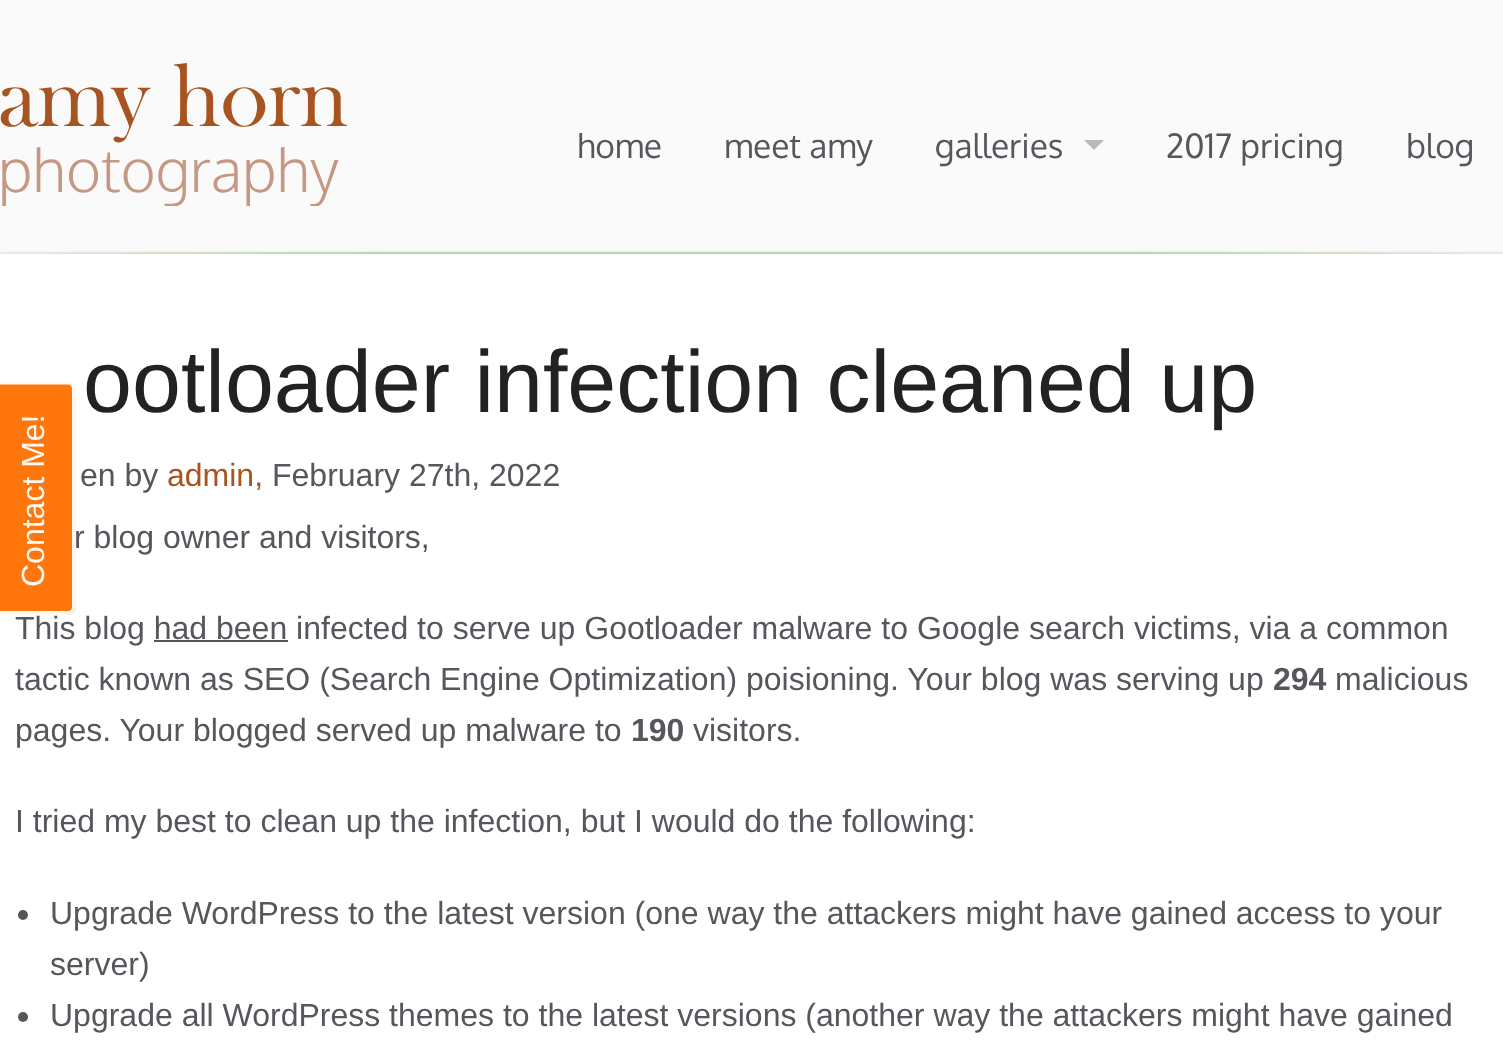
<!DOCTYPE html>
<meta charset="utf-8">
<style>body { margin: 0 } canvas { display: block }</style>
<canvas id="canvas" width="1503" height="1058"></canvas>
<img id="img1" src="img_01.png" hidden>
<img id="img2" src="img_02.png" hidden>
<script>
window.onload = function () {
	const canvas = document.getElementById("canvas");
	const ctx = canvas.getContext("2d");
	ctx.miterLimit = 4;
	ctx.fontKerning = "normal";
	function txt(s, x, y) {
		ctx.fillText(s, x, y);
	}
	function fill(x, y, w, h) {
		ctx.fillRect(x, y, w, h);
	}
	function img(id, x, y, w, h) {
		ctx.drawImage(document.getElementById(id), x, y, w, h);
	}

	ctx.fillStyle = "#FAFAFA";
	fill(0, 0, 1503, 1058);
	img("img1", 0, 251, 1503, 3);
	img("img2", 0, 63, 348, 143);
	ctx.fillStyle = "#B9B8BB";
	ctx.beginPath();
	ctx.moveTo(1084, 140);
	ctx.lineTo(1104, 140);
	ctx.lineTo(1094, 150);
	ctx.closePath();
	ctx.fill();
	ctx.fillStyle = "#FFFFFF";
	fill(0, 254, 1503, 804);
	ctx.fillStyle = "#58565C";
	fill(154, 640, 134, 2);
	ctx.beginPath();
	ctx.arc(23, 915, 5, 0, Math.PI * 2);
	ctx.fill();
	ctx.beginPath();
	ctx.arc(23, 1017, 5, 0, Math.PI * 2);
	ctx.fill();
	ctx.font = "33.5px Oxygen";
	txt("home", 577, 158);
	txt("meet amy", 724, 158);
	txt("galleries", 935, 158);
	txt("2017 pricing", 1166, 158);
	txt("blog", 1406, 158);
	ctx.font = "88px Liberation Sans";
	ctx.fillStyle = "#222222";
	txt("ootloader infection cleaned up", 83, 412);
	ctx.font = "32px Liberation Sans";
	ctx.fillStyle = "#58565C";
	txt("en by", 80, 486);
	ctx.fillStyle = "#A75421";
	txt("admin,", 167, 486);
	ctx.fillStyle = "#58565C";
	txt("February 27th, 2022", 272, 486);
	txt("r blog owner and visitors,", 74, 548);
	txt("This blog had been infected to serve up Gootloader malware to Google search victims, via a common", 15, 639);
	txt("tactic known as SEO (Search Engine Optimization) poisioning. Your blog was serving up", 15, 690);
	ctx.font = "bold 32px Liberation Sans";
	txt("294", 1273, 690);
	ctx.font = "32px Liberation Sans";
	txt("malicious", 1335, 690);
	txt("pages. Your blogged served up malware to", 15, 741);
	ctx.font = "bold 32px Liberation Sans";
	txt("190", 631, 741);
	ctx.font = "32px Liberation Sans";
	txt("visitors.", 693, 741);
	txt("I tried my best to clean up the infection, but I would do the following:", 15, 832);
	txt("Upgrade WordPress to the latest version (one way the attackers might have gained access to your", 50, 924);
	txt("server)", 50, 975);
	txt("Upgrade all WordPress themes to the latest versions (another way the attackers might have gained", 50, 1026);
	ctx.fillStyle = "rgba(255, 111, 0, 0.95)";
	ctx.beginPath();
	ctx.moveTo(-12, 607);
	ctx.lineTo(-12, 389);
	ctx.bezierCurveTo(-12, 384, -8, 381, -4, 381);
	ctx.lineTo(68, 381);
	ctx.bezierCurveTo(72, 381, 76, 384, 76, 389);
	ctx.lineTo(76, 607);
	ctx.bezierCurveTo(76, 612, 72, 615, 68, 615);
	ctx.lineTo(-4, 615);
	ctx.bezierCurveTo(-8, 615, -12, 612, -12, 607);
	ctx.closePath();
	ctx.fill();
	ctx.beginPath();
	ctx.moveTo(-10, 607);
	ctx.lineTo(-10, 388.5);
	ctx.bezierCurveTo(-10, 385.5, -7.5, 382.5, -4, 382.5);
	ctx.lineTo(68, 382.5);
	ctx.bezierCurveTo(71.5, 382.5, 74, 385.5, 74, 388.5);
	ctx.lineTo(74, 607);
	ctx.bezierCurveTo(74, 610.5, 71.5, 613, 68, 613);
	ctx.lineTo(-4, 613);
	ctx.bezierCurveTo(-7.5, 613, -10, 610.5, -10, 607);
	ctx.closePath();
	ctx.strokeStyle = "rgba(255, 255, 255, 0.95)";
	ctx.lineWidth = 4;
	ctx.stroke();
	ctx.fillStyle = "#FFF8F3";
	ctx.save();
	ctx.translate(44, 587);
	ctx.rotate(-90 * Math.PI / 180);
	ctx.fillText("Contact Me!", 0, 0);
	ctx.restore();
};
</script>
